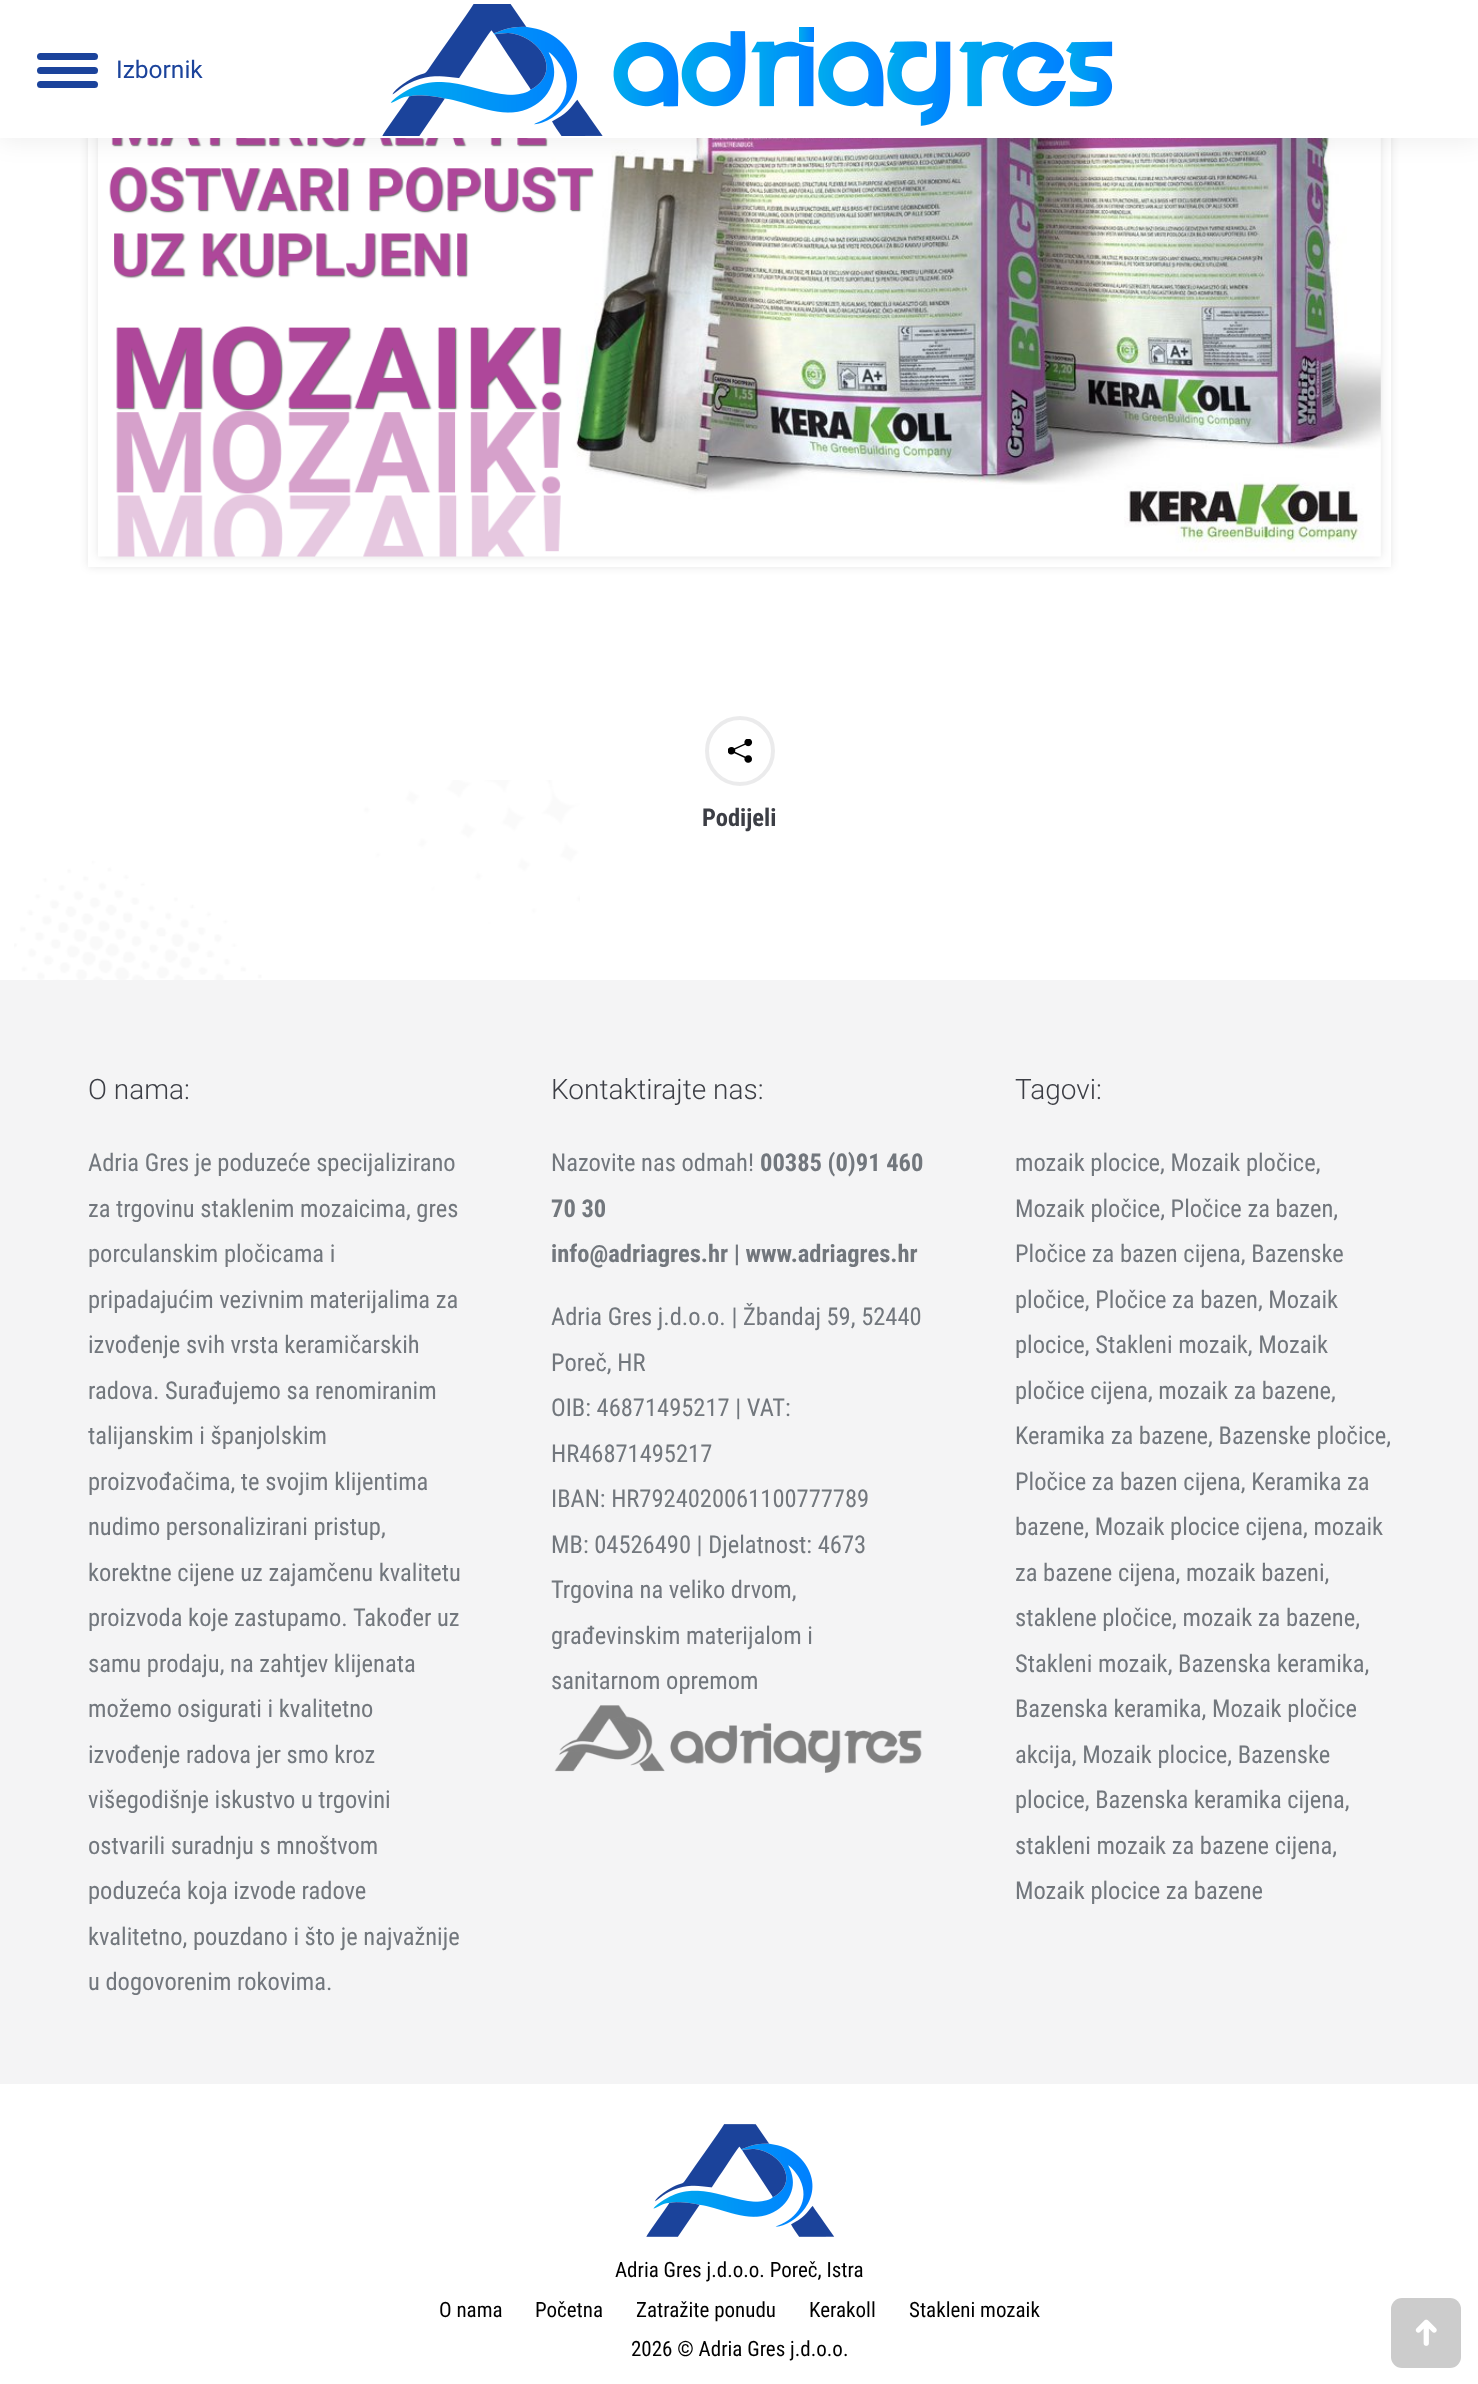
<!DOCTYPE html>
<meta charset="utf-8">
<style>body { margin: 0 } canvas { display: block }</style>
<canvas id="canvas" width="1478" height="2384"></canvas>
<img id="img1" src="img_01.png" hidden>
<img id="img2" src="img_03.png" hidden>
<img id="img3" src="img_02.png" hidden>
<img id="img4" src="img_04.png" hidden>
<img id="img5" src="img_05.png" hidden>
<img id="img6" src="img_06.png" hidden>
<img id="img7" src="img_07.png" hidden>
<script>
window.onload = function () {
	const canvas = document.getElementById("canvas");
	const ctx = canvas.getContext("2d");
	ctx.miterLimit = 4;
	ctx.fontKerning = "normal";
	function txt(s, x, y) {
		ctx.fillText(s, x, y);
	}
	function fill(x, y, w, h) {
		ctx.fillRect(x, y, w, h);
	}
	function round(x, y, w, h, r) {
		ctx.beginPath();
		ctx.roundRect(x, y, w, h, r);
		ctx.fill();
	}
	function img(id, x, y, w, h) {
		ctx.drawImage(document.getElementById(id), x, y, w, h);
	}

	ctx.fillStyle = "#FFFFFF";
	fill(0, 0, 1478, 2384);
	img("img1", 14, 780, 566, 200);
	ctx.save();
	ctx.beginPath();
	ctx.moveTo(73, 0);
	ctx.lineTo(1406, 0);
	ctx.lineTo(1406, 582);
	ctx.lineTo(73, 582);
	ctx.closePath();
	ctx.moveTo(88, -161);
	ctx.lineTo(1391, -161);
	ctx.lineTo(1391, 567);
	ctx.lineTo(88, 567);
	ctx.closePath();
	ctx.clip("evenodd");
	ctx.fillStyle = "rgba(0, 0, 0, 0.1)";
	ctx.filter = "blur(4.5px)";
	ctx.beginPath();
	ctx.rect(88, -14, 1303, 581);
	ctx.fill();
	ctx.filter = "none";
	ctx.restore();
	ctx.fillStyle = "rgba(0, 0, 0, 0.1)";
	ctx.filter = "blur(4.5px)";
	ctx.beginPath();
	ctx.rect(98, -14, 1283, 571);
	ctx.fill();
	ctx.filter = "none";
	img("img2", 98, 138, 1283, 419);
	ctx.fillStyle = "rgba(0, 0, 0, 0.07)";
	ctx.filter = "blur(13px)";
	ctx.beginPath();
	ctx.rect(-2, -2, 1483, 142);
	ctx.fill();
	ctx.filter = "none";
	ctx.fillStyle = "#FFFFFF";
	fill(0, 0, 1478, 138);
	ctx.fillStyle = "#1B439B";
	round(37, 53, 61, 7, 3.5);
	round(37, 67, 61, 7, 3.5);
	round(37, 81, 61, 7, 3.5);
	img("img3", 382, 4, 731, 132);
	ctx.beginPath();
	ctx.arc(740, 751, 33, 0, Math.PI * 2);
	ctx.strokeStyle = "rgba(60, 62, 69, 0.1)";
	ctx.lineWidth = 4;
	ctx.stroke();
	img("img4", 728, 739, 25, 24);
	ctx.fillStyle = "#F4F4F5";
	fill(0, 980, 1478, 1104);
	img("img5", 554, 1705, 368, 68);
	img("img6", 646, 2124, 189, 113);
	ctx.fillStyle = "#CCCCCC";
	round(1391, 2298, 70, 70, 11);
	img("img7", 1415, 2319, 22, 27);
	ctx.font = "24.5px Roboto";
	ctx.fillStyle = "#1B439B";
	txt("Izbornik", 116, 78);
	ctx.font = "bold 24.5px Roboto Condensed";
	ctx.fillStyle = "#3C3E45";
	txt("Podijeli", 702, 826);
	ctx.font = "300 28px Roboto";
	txt("O nama:", 88, 1099);
	ctx.font = "24.5px Roboto Condensed";
	ctx.fillStyle = "#72777D";
	txt("Adria Gres je poduzeće specijalizirano", 88, 1171);
	txt("za trgovinu staklenim mozaicima, gres", 88, 1217);
	txt("porculanskim pločicama i", 88, 1262);
	txt("pripadajućim vezivnim materijalima za", 88, 1308);
	txt("izvođenje svih vrsta keramičarskih", 88, 1353);
	txt("radova. Surađujemo sa renomiranim", 88, 1399);
	txt("talijanskim i španjolskim", 88, 1444);
	txt("proizvođačima, te svojim klijentima", 88, 1490);
	txt("nudimo personalizirani pristup,", 88, 1535);
	txt("korektne cijene uz zajamčenu kvalitetu", 88, 1581);
	txt("proizvoda koje zastupamo. Također uz", 88, 1626);
	txt("samu prodaju, na zahtjev klijenata", 88, 1672);
	txt("možemo osigurati i kvalitetno", 88, 1717);
	txt("izvođenje radova jer smo kroz", 88, 1763);
	txt("višegodišnje iskustvo u trgovini", 88, 1808);
	txt("ostvarili suradnju s mnoštvom", 88, 1854);
	txt("poduzeća koja izvode radove", 88, 1899);
	txt("kvalitetno, pouzdano i što je najvažnije", 88, 1945);
	txt("u dogovorenim rokovima.", 88, 1990);
	ctx.font = "300 28px Roboto";
	ctx.fillStyle = "#3C3E45";
	txt("Kontaktirajte nas:", 551, 1099);
	ctx.font = "24.5px Roboto Condensed";
	ctx.fillStyle = "#72777D";
	txt("Nazovite nas odmah!", 551, 1171);
	ctx.font = "bold 24.5px Roboto Condensed";
	txt("00385 (0)91 460", 760, 1171);
	txt("70 30", 551, 1217);
	txt("info@adriagres.hr | www.adriagres.hr", 551, 1262);
	ctx.font = "24.5px Roboto Condensed";
	txt("Adria Gres j.d.o.o. | Žbandaj 59, 52440", 551, 1325);
	txt("Poreč, HR", 551, 1371);
	txt("OIB: 46871495217 | VAT:", 551, 1416);
	txt("HR46871495217", 551, 1462);
	txt("IBAN: HR7924020061100777789", 551, 1507);
	txt("MB: 04526490 | Djelatnost: 4673", 551, 1553);
	txt("Trgovina na veliko drvom,", 551, 1598);
	txt("građevinskim materijalom i", 551, 1644);
	txt("sanitarnom opremom", 551, 1689);
	ctx.font = "300 28px Roboto";
	ctx.fillStyle = "#3C3E45";
	txt("Tagovi:", 1015, 1099);
	ctx.font = "24.5px Roboto Condensed";
	ctx.fillStyle = "#72777D";
	txt("mozaik plocice, Mozaik pločice,", 1015, 1171);
	txt("Mozaik pločice, Pločice za bazen,", 1015, 1217);
	txt("Pločice za bazen cijena, Bazenske", 1015, 1262);
	txt("pločice, Pločice za bazen, Mozaik", 1015, 1308);
	txt("plocice, Stakleni mozaik, Mozaik", 1015, 1353);
	txt("pločice cijena, mozaik za bazene,", 1015, 1399);
	txt("Keramika za bazene, Bazenske pločice,", 1015, 1444);
	txt("Pločice za bazen cijena, Keramika za", 1015, 1490);
	txt("bazene, Mozaik plocice cijena, mozaik", 1015, 1535);
	txt("za bazene cijena, mozaik bazeni,", 1015, 1581);
	txt("staklene pločice, mozaik za bazene,", 1015, 1626);
	txt("Stakleni mozaik, Bazenska keramika,", 1015, 1672);
	txt("Bazenska keramika, Mozaik pločice", 1015, 1717);
	txt("akcija, Mozaik plocice, Bazenske", 1015, 1763);
	txt("plocice, Bazenska keramika cijena,", 1015, 1808);
	txt("stakleni mozaik za bazene cijena,", 1015, 1854);
	txt("Mozaik plocice za bazene", 1015, 1899);
	ctx.font = "21px Roboto Condensed";
	ctx.fillStyle = "#000000";
	txt("Adria Gres j.d.o.o. Poreč, Istra", 615, 2277);
	txt("O nama", 439, 2317);
	txt("Početna", 535, 2317);
	txt("Zatražite ponudu", 636, 2317);
	txt("Kerakoll", 809, 2317);
	txt("Stakleni mozaik", 909, 2317);
	txt("2026 © Adria Gres j.d.o.o.", 631, 2356);
};
</script>
